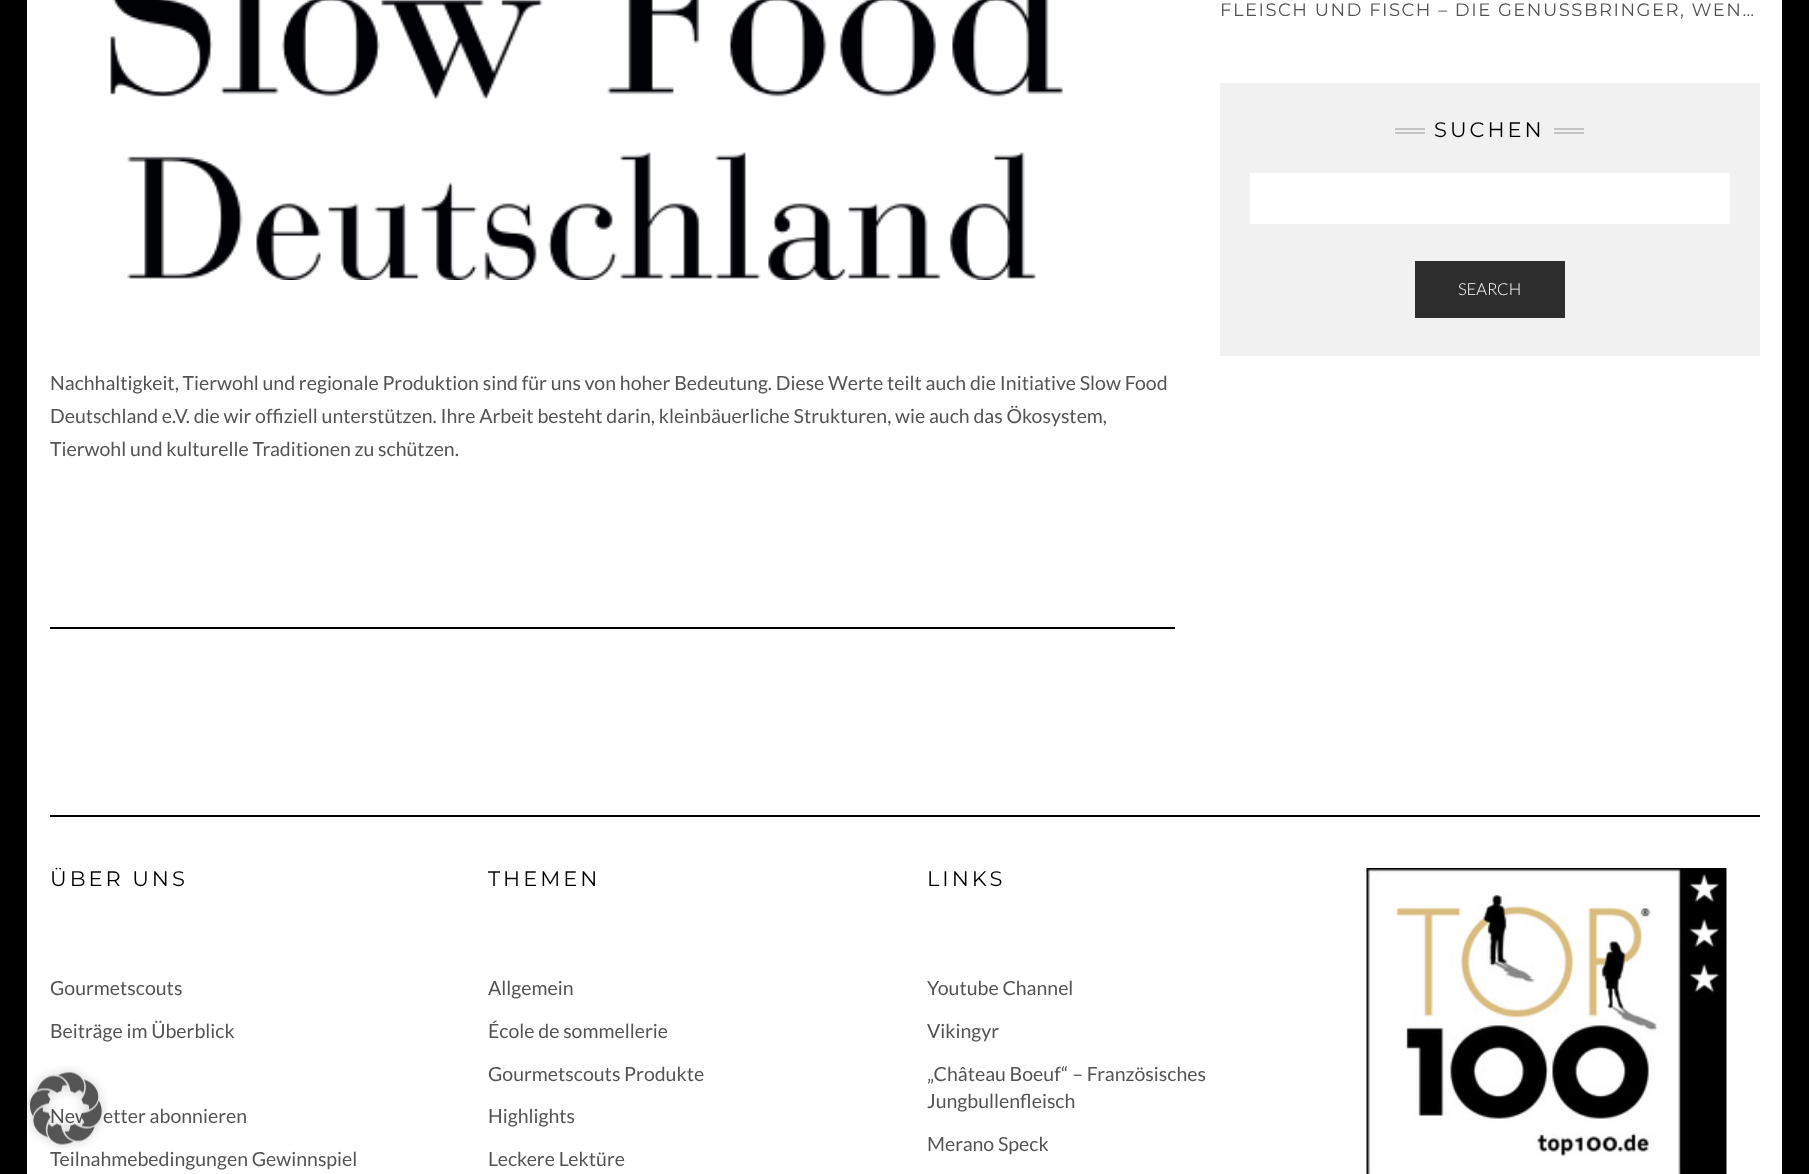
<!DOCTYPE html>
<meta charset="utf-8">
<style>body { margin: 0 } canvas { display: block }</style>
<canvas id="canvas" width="1809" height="1174"></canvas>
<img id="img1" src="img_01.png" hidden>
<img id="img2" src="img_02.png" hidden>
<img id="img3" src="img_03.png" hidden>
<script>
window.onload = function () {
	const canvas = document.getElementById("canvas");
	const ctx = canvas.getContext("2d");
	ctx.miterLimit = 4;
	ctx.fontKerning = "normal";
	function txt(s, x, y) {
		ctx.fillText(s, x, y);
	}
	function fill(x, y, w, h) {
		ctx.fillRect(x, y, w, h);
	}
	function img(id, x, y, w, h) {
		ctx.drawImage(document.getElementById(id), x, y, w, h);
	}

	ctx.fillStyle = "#000000";
	fill(0, 0, 1809, 1174);
	ctx.fillStyle = "#FFFFFF";
	fill(27, 0, 1755, 1174);
	ctx.fillStyle = "#F1F1F1";
	fill(1220, 83, 540, 273);
	ctx.fillStyle = "#C4C4C4";
	fill(1395, 128, 30, 2);
	fill(1395, 132, 30, 2);
	fill(1554, 128, 30, 2);
	fill(1554, 132, 30, 2);
	ctx.fillStyle = "#FFFFFF";
	fill(1250, 173, 480, 51);
	ctx.fillStyle = "#2D2D2D";
	fill(1415, 261, 150, 57);
	img("img1", 110, 0, 953, 280);
	ctx.fillStyle = "#000000";
	fill(50, 627, 1125, 2);
	fill(50, 815, 1710, 2);
	img("img2", 1366, 868, 361, 306);
	ctx.letterSpacing = "1.5px";
	ctx.font = "100 18px Montserrat";
	ctx.fillStyle = "#545454";
	txt("FLEISCH UND FISCH – DIE GENUSSBRINGER, WEN…", 1220, 16);
	ctx.letterSpacing = "3px";
	ctx.font = "100 21px Montserrat";
	ctx.fillStyle = "#000000";
	txt("SUCHEN", 1434, 137);
	ctx.letterSpacing = "0px";
	ctx.font = "300 16.5px Lato";
	ctx.fillStyle = "#FFFFFF";
	txt("SEARCH", 1458, 295);
	ctx.font = "19.5px Lato";
	ctx.fillStyle = "#545454";
	txt("Nachhaltigkeit, Tierwohl und regionale Produktion sind für uns von hoher Bedeutung. Diese Werte teilt auch die Initiative Slow Food", 50, 390);
	txt("Deutschland e.V. die wir offiziell unterstützen. Ihre Arbeit besteht darin, kleinbäuerliche Strukturen, wie auch das Ökosystem,", 50, 423);
	txt("Tierwohl und kulturelle Traditionen zu schützen.", 50, 456);
	ctx.letterSpacing = "3px";
	ctx.font = "100 21px Montserrat";
	ctx.fillStyle = "#000000";
	txt("ÜBER UNS", 50, 886);
	ctx.letterSpacing = "0px";
	ctx.font = "19.5px Lato";
	ctx.fillStyle = "#545454";
	txt("Gourmetscouts", 50, 995);
	txt("Beiträge im Überblick", 50, 1038);
	txt("New", 50, 1123);
	txt("etter abonnieren", 103, 1123);
	txt("Teilnahmebedingungen Gewinnspiel", 50, 1166);
	ctx.letterSpacing = "3px";
	ctx.font = "100 21px Montserrat";
	ctx.fillStyle = "#000000";
	txt("THEMEN", 488, 886);
	ctx.letterSpacing = "0px";
	ctx.font = "19.5px Lato";
	ctx.fillStyle = "#545454";
	txt("Allgemein", 488, 995);
	txt("École de sommellerie", 488, 1038);
	txt("Gourmetscouts Produkte", 488, 1081);
	txt("Highlights", 488, 1123);
	txt("Leckere Lektüre", 488, 1166);
	ctx.letterSpacing = "3px";
	ctx.font = "100 21px Montserrat";
	ctx.fillStyle = "#000000";
	txt("LINKS", 927, 886);
	ctx.letterSpacing = "0px";
	ctx.font = "19.5px Lato";
	ctx.fillStyle = "#545454";
	txt("Youtube Channel", 927, 995);
	txt("Vikingyr", 927, 1038);
	txt("„Château Boeuf“ – Französisches", 927, 1081);
	txt("Jungbullenfleisch", 927, 1108);
	txt("Merano Speck", 927, 1151);
	img("img3", 27, 1066, 81, 84);
};
</script>
